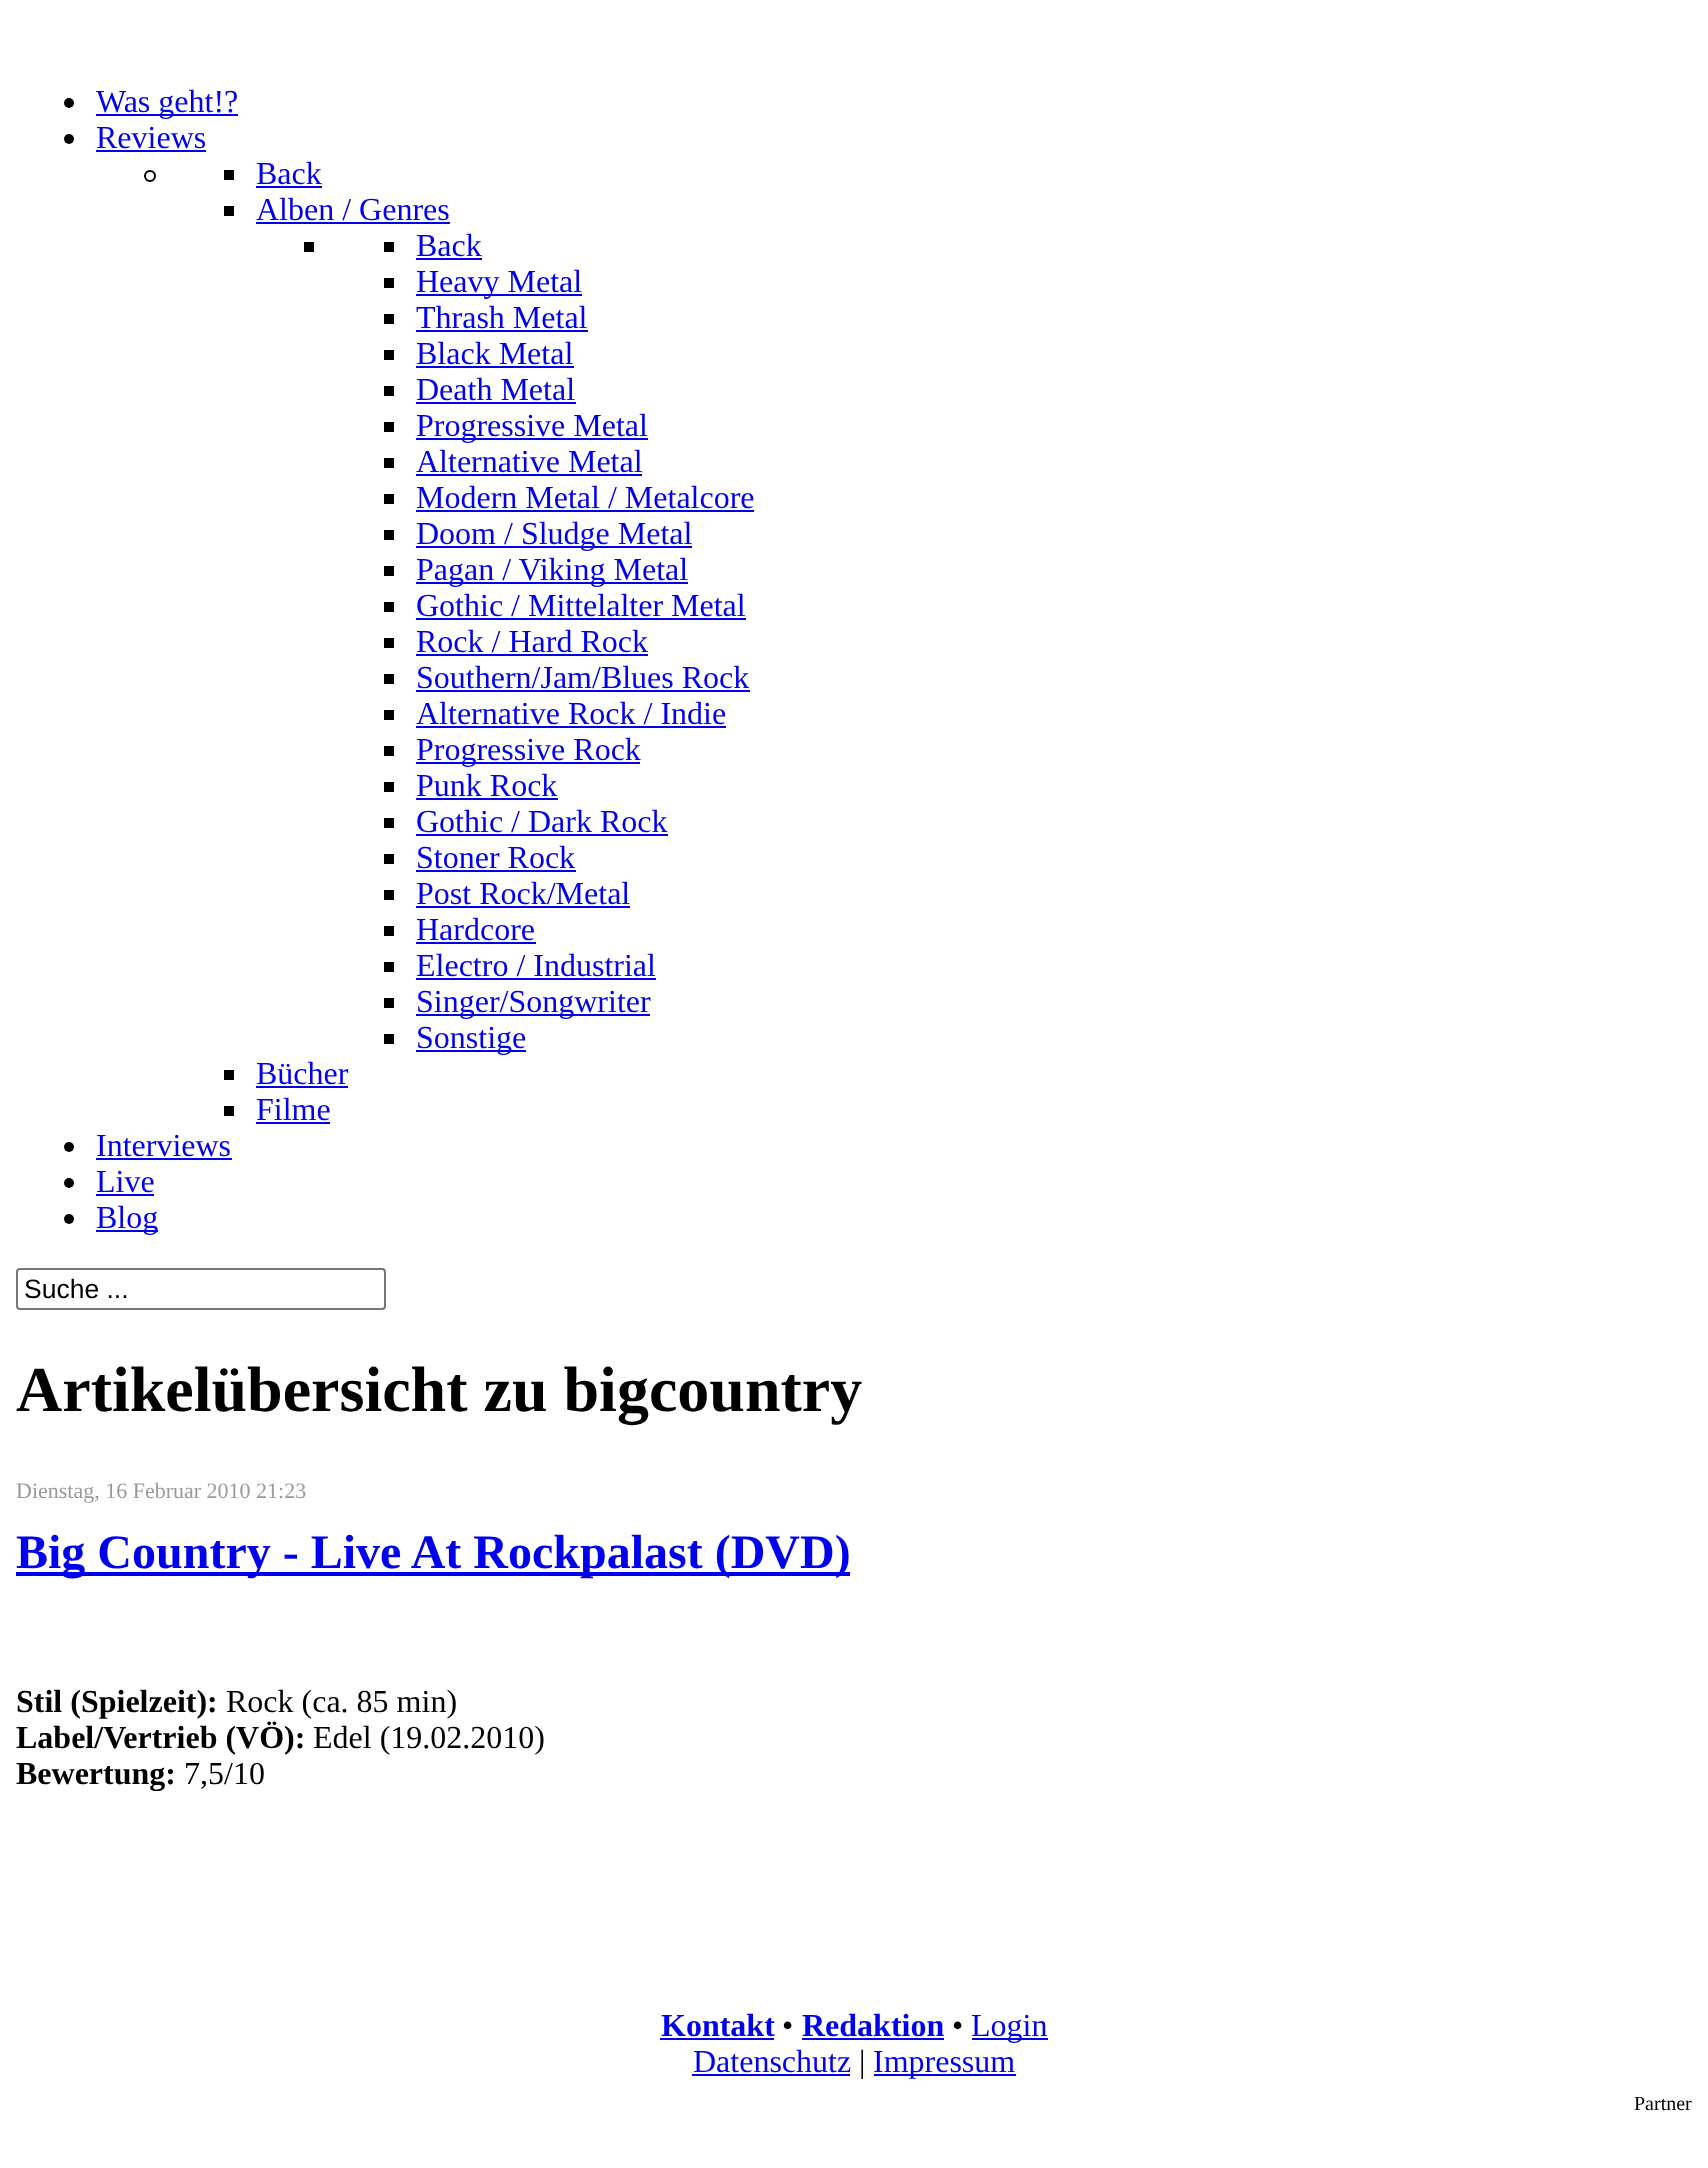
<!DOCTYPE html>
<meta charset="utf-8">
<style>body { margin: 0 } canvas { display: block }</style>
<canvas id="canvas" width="1708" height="2168"></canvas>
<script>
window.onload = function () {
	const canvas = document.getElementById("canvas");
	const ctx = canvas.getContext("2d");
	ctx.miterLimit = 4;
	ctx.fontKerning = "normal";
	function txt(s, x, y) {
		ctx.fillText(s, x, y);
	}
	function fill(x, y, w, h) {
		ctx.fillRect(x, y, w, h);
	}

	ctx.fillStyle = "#FFFFFF";
	fill(0, 0, 1708, 2168);
	ctx.fillStyle = "#000000";
	ctx.beginPath();
	ctx.arc(69, 103, 5, 0, Math.PI * 2);
	ctx.fill();
	ctx.fillStyle = "#0000EE";
	fill(96, 114, 142, 2);
	ctx.fillStyle = "#000000";
	ctx.beginPath();
	ctx.arc(69, 139, 5, 0, Math.PI * 2);
	ctx.fill();
	ctx.fillStyle = "#0000EE";
	fill(96, 150, 110, 2);
	ctx.beginPath();
	ctx.arc(150, 176, 5, 0, Math.PI * 2);
	ctx.strokeStyle = "#000000";
	ctx.lineWidth = 2;
	ctx.stroke();
	ctx.fillStyle = "#000000";
	fill(224, 170, 10, 10);
	ctx.fillStyle = "#0000EE";
	fill(256, 186, 66, 2);
	ctx.fillStyle = "#000000";
	fill(224, 206, 10, 10);
	ctx.fillStyle = "#0000EE";
	fill(256, 222, 194, 2);
	ctx.fillStyle = "#000000";
	fill(304, 242, 10, 10);
	fill(384, 242, 10, 10);
	ctx.fillStyle = "#0000EE";
	fill(416, 258, 66, 2);
	ctx.fillStyle = "#000000";
	fill(384, 278, 10, 10);
	ctx.fillStyle = "#0000EE";
	fill(416, 294, 166, 2);
	ctx.fillStyle = "#000000";
	fill(384, 314, 10, 10);
	ctx.fillStyle = "#0000EE";
	fill(416, 330, 172, 2);
	ctx.fillStyle = "#000000";
	fill(384, 350, 10, 10);
	ctx.fillStyle = "#0000EE";
	fill(416, 366, 158, 2);
	ctx.fillStyle = "#000000";
	fill(384, 386, 10, 10);
	ctx.fillStyle = "#0000EE";
	fill(416, 402, 160, 2);
	ctx.fillStyle = "#000000";
	fill(384, 422, 10, 10);
	ctx.fillStyle = "#0000EE";
	fill(416, 438, 232, 2);
	ctx.fillStyle = "#000000";
	fill(384, 458, 10, 10);
	ctx.fillStyle = "#0000EE";
	fill(416, 474, 226, 2);
	ctx.fillStyle = "#000000";
	fill(384, 494, 10, 10);
	ctx.fillStyle = "#0000EE";
	fill(416, 510, 338, 2);
	ctx.fillStyle = "#000000";
	fill(384, 530, 10, 10);
	ctx.fillStyle = "#0000EE";
	fill(416, 546, 276, 2);
	ctx.fillStyle = "#000000";
	fill(384, 566, 10, 10);
	ctx.fillStyle = "#0000EE";
	fill(416, 582, 272, 2);
	ctx.fillStyle = "#000000";
	fill(384, 602, 10, 10);
	ctx.fillStyle = "#0000EE";
	fill(416, 618, 330, 2);
	ctx.fillStyle = "#000000";
	fill(384, 638, 10, 10);
	ctx.fillStyle = "#0000EE";
	fill(416, 654, 232, 2);
	ctx.fillStyle = "#000000";
	fill(384, 674, 10, 10);
	ctx.fillStyle = "#0000EE";
	fill(416, 690, 334, 2);
	ctx.fillStyle = "#000000";
	fill(384, 710, 10, 10);
	ctx.fillStyle = "#0000EE";
	fill(416, 726, 310, 2);
	ctx.fillStyle = "#000000";
	fill(384, 746, 10, 10);
	ctx.fillStyle = "#0000EE";
	fill(416, 762, 224, 2);
	ctx.fillStyle = "#000000";
	fill(384, 782, 10, 10);
	ctx.fillStyle = "#0000EE";
	fill(416, 798, 142, 2);
	ctx.fillStyle = "#000000";
	fill(384, 818, 10, 10);
	ctx.fillStyle = "#0000EE";
	fill(416, 834, 252, 2);
	ctx.fillStyle = "#000000";
	fill(384, 854, 10, 10);
	ctx.fillStyle = "#0000EE";
	fill(416, 870, 160, 2);
	ctx.fillStyle = "#000000";
	fill(384, 890, 10, 10);
	ctx.fillStyle = "#0000EE";
	fill(416, 906, 214, 2);
	ctx.fillStyle = "#000000";
	fill(384, 926, 10, 10);
	ctx.fillStyle = "#0000EE";
	fill(416, 942, 120, 2);
	ctx.fillStyle = "#000000";
	fill(384, 962, 10, 10);
	ctx.fillStyle = "#0000EE";
	fill(416, 978, 240, 2);
	ctx.fillStyle = "#000000";
	fill(384, 998, 10, 10);
	ctx.fillStyle = "#0000EE";
	fill(416, 1014, 234, 2);
	ctx.fillStyle = "#000000";
	fill(384, 1034, 10, 10);
	ctx.fillStyle = "#0000EE";
	fill(416, 1050, 110, 2);
	ctx.fillStyle = "#000000";
	fill(224, 1070, 10, 10);
	ctx.fillStyle = "#0000EE";
	fill(256, 1086, 92, 2);
	ctx.fillStyle = "#000000";
	fill(224, 1106, 10, 10);
	ctx.fillStyle = "#0000EE";
	fill(256, 1122, 74, 2);
	ctx.fillStyle = "#000000";
	ctx.beginPath();
	ctx.arc(69, 1147, 5, 0, Math.PI * 2);
	ctx.fill();
	ctx.fillStyle = "#0000EE";
	fill(96, 1158, 136, 2);
	ctx.fillStyle = "#000000";
	ctx.beginPath();
	ctx.arc(69, 1183, 5, 0, Math.PI * 2);
	ctx.fill();
	ctx.fillStyle = "#0000EE";
	fill(96, 1194, 58, 2);
	ctx.fillStyle = "#000000";
	ctx.beginPath();
	ctx.arc(69, 1219, 5, 0, Math.PI * 2);
	ctx.fill();
	ctx.fillStyle = "#0000EE";
	fill(96, 1230, 62, 2);
	ctx.beginPath();
	ctx.roundRect(17, 1269, 368, 40, 3);
	ctx.strokeStyle = "#767676";
	ctx.stroke();
	fill(16, 1572, 834, 4);
	fill(660, 2038, 114, 2);
	fill(802, 2038, 142, 2);
	fill(972, 2038, 76, 2);
	fill(692, 2074, 158, 2);
	fill(874, 2074, 142, 2);
	ctx.font = "32px Liberation Serif";
	txt("Was geht!?", 96, 112);
	txt("Reviews", 96, 148);
	txt("Back", 256, 184);
	txt("Alben / Genres", 256, 220);
	txt("Back", 416, 256);
	txt("Heavy Metal", 416, 292);
	txt("Thrash Metal", 416, 328);
	txt("Black Metal", 416, 364);
	txt("Death Metal", 416, 400);
	txt("Progressive Metal", 416, 436);
	txt("Alternative Metal", 416, 472);
	txt("Modern Metal / Metalcore", 416, 508);
	txt("Doom / Sludge Metal", 416, 544);
	txt("Pagan / Viking Metal", 416, 580);
	txt("Gothic / Mittelalter Metal", 416, 616);
	txt("Rock / Hard Rock", 416, 652);
	txt("Southern/Jam/Blues Rock", 416, 688);
	txt("Alternative Rock / Indie", 416, 724);
	txt("Progressive Rock", 416, 760);
	txt("Punk Rock", 416, 796);
	txt("Gothic / Dark Rock", 416, 832);
	txt("Stoner Rock", 416, 868);
	txt("Post Rock/Metal", 416, 904);
	txt("Hardcore", 416, 940);
	txt("Electro / Industrial", 416, 976);
	txt("Singer/Songwriter", 416, 1012);
	txt("Sonstige", 416, 1048);
	txt("Bücher", 256, 1084);
	txt("Filme", 256, 1120);
	txt("Interviews", 96, 1156);
	txt("Live", 96, 1192);
	txt("Blog", 96, 1228);
	ctx.font = "26.5px Liberation Sans";
	ctx.fillStyle = "#000000";
	txt("Suche ...", 24, 1298);
	ctx.font = "bold 64px Liberation Serif";
	txt("Artikelübersicht zu bigcountry", 16, 1411);
	ctx.font = "22px Liberation Serif";
	ctx.fillStyle = "#999999";
	txt("Dienstag, 16 Februar 2010 21:23", 16, 1498);
	ctx.font = "bold 48px Liberation Serif";
	ctx.fillStyle = "#0000EE";
	txt("Big Country - Live At Rockpalast (DVD)", 16, 1568);
	ctx.font = "bold 32px Liberation Serif";
	ctx.fillStyle = "#000000";
	txt("Stil (Spielzeit):", 16, 1712);
	ctx.font = "32px Liberation Serif";
	txt("Rock (ca. 85 min)", 226, 1712);
	ctx.font = "bold 32px Liberation Serif";
	txt("Label/Vertrieb (VÖ):", 16, 1748);
	ctx.font = "32px Liberation Serif";
	txt("Edel (19.02.2010)", 313, 1748);
	ctx.font = "bold 32px Liberation Serif";
	txt("Bewertung:", 16, 1784);
	ctx.font = "32px Liberation Serif";
	txt("7,5/10", 184, 1784);
	ctx.font = "bold 32px Liberation Serif";
	ctx.fillStyle = "#0000EE";
	txt("Kontakt", 661, 2036);
	ctx.font = "32px Liberation Serif";
	ctx.fillStyle = "#000000";
	txt("•", 782, 2036);
	ctx.font = "bold 32px Liberation Serif";
	ctx.fillStyle = "#0000EE";
	txt("Redaktion", 802, 2036);
	ctx.font = "32px Liberation Serif";
	ctx.fillStyle = "#000000";
	txt("•", 952, 2036);
	ctx.fillStyle = "#0000EE";
	txt("Login", 971, 2036);
	txt("Datenschutz", 693, 2072);
	ctx.fillStyle = "#000000";
	txt("|", 859, 2072);
	ctx.fillStyle = "#0000EE";
	txt("Impressum", 873, 2072);
	ctx.font = "20px Liberation Serif";
	ctx.fillStyle = "#000000";
	txt("Partner", 1634, 2110);
};
</script>
